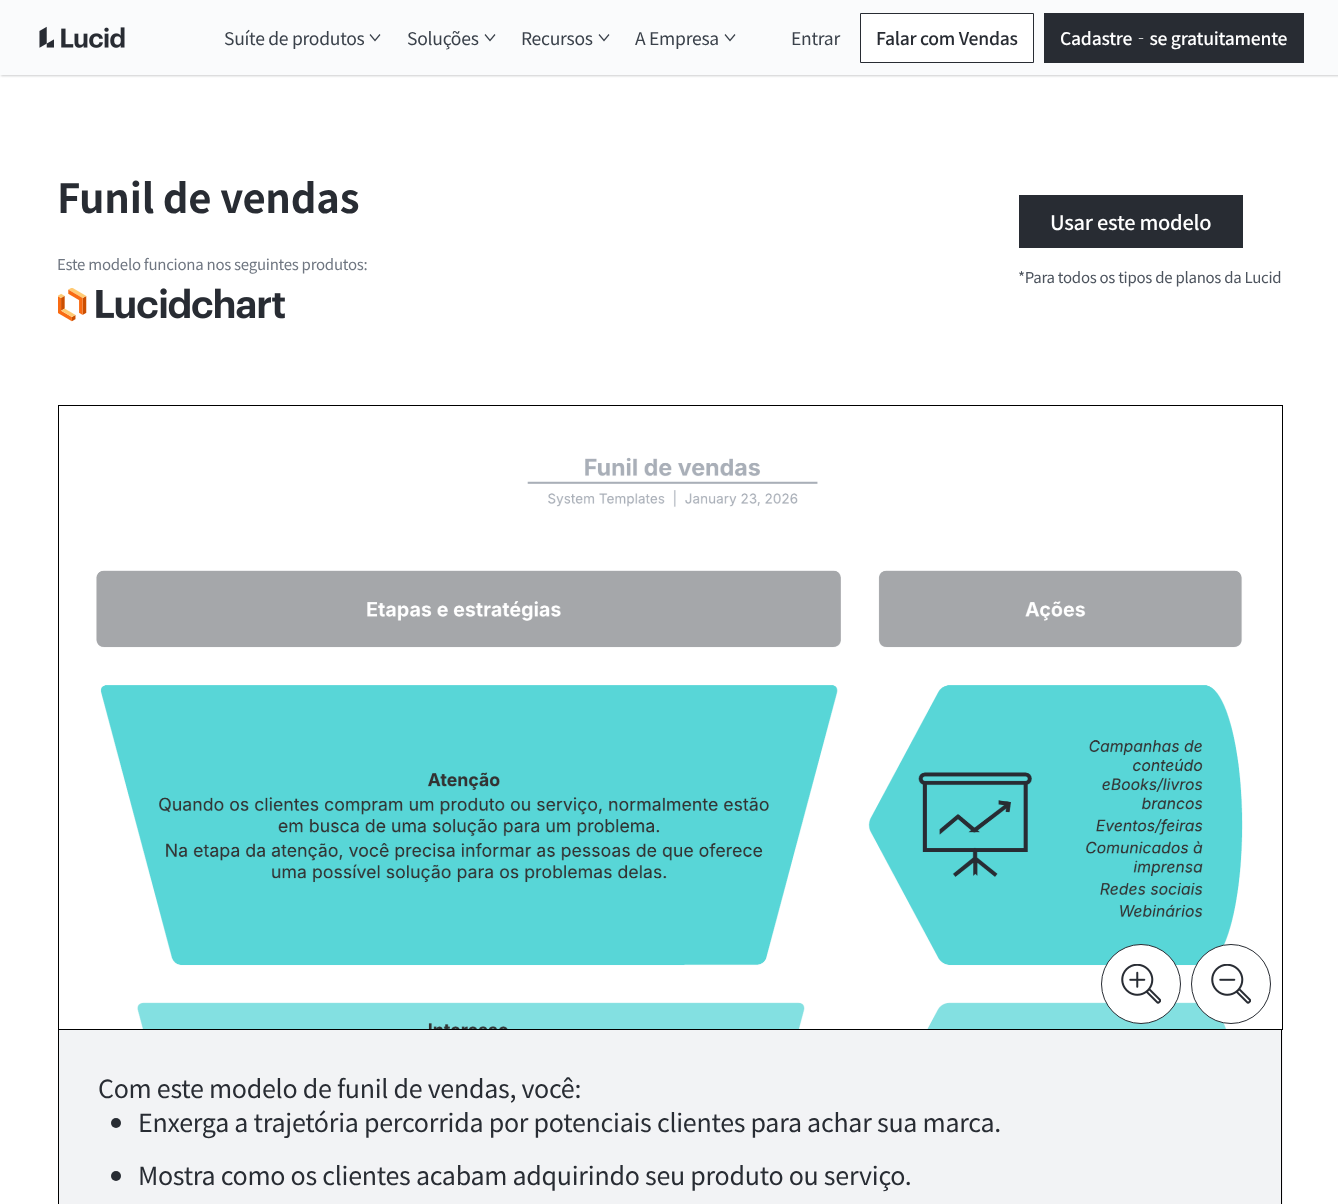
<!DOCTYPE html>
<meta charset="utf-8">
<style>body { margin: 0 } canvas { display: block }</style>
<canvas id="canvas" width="1338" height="1204"></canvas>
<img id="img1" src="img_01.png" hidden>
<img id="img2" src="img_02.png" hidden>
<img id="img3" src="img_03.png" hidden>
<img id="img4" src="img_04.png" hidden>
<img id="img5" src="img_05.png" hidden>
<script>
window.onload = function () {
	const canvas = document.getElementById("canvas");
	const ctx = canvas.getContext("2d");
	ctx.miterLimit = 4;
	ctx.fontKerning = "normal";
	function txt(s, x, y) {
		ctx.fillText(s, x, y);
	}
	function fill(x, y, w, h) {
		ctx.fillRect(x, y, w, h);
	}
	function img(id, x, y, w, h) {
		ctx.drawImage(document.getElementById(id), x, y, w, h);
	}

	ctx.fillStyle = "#FFFFFF";
	fill(0, 0, 1338, 1204);
	ctx.fillStyle = "rgba(40, 44, 51, 0.24)";
	ctx.filter = "blur(1px)";
	ctx.beginPath();
	ctx.rect(1, 1, 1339, 75);
	ctx.fill();
	ctx.filter = "none";
	ctx.fillStyle = "#FAFBFC";
	fill(0, 0, 1338, 75);
	img("img1", 39, 26, 86, 22);
	ctx.beginPath();
	ctx.moveTo(370, 34.5);
	ctx.lineTo(375, 40.5);
	ctx.lineTo(380, 34.5);
	ctx.strokeStyle = "#3A414A";
	ctx.lineWidth = 1.2;
	ctx.stroke();
	ctx.beginPath();
	ctx.moveTo(485, 34.5);
	ctx.lineTo(490, 40.5);
	ctx.lineTo(495, 34.5);
	ctx.stroke();
	ctx.beginPath();
	ctx.moveTo(599, 34.5);
	ctx.lineTo(604, 40.5);
	ctx.lineTo(609, 34.5);
	ctx.stroke();
	ctx.beginPath();
	ctx.moveTo(725, 34.5);
	ctx.lineTo(730, 40.5);
	ctx.lineTo(735, 34.5);
	ctx.stroke();
	ctx.fillStyle = "#FFFFFF";
	ctx.beginPath();
	ctx.rect(860.5, 13.5, 173, 49);
	ctx.fill();
	ctx.strokeStyle = "#282C33";
	ctx.lineWidth = 1;
	ctx.stroke();
	ctx.fillStyle = "#282C33";
	fill(1044, 13, 260, 50);
	img("img2", 58, 288, 227, 34);
	fill(1019, 195, 224, 53);
	ctx.strokeStyle = "#000000";
	ctx.strokeRect(58.5, 405.5, 1224, 624);
	img("img3", 96, 457, 1147, 572);
	ctx.fillStyle = "#FFFFFF";
	ctx.beginPath();
	ctx.arc(1141, 984, 39.5, 0, Math.PI * 2);
	ctx.fill();
	ctx.strokeStyle = "#282C33";
	ctx.stroke();
	img("img4", 1121, 964, 40, 40);
	ctx.beginPath();
	ctx.arc(1231, 984, 39.5, 0, Math.PI * 2);
	ctx.fill();
	ctx.stroke();
	img("img5", 1211, 964, 40, 40);
	ctx.fillStyle = "#F2F3F5";
	fill(59, 1030, 1224, 174);
	ctx.fillStyle = "#000000";
	fill(1281, 1030, 1, 174);
	fill(58, 1030, 1, 174);
	ctx.fillStyle = "#282C33";
	ctx.beginPath();
	ctx.arc(116, 1123, 5, 0, Math.PI * 2);
	ctx.fill();
	ctx.beginPath();
	ctx.arc(116, 1176, 5, 0, Math.PI * 2);
	ctx.fill();
	ctx.letterSpacing = "-0.25px";
	ctx.font = "17.5px Noto Sans JP";
	ctx.fillStyle = "#3A414A";
	txt("Suíte de produtos", 224, 45);
	txt("Soluções", 407, 45);
	txt("Recursos", 521, 45);
	txt("A Empresa", 635, 45);
	txt("Entrar", 791, 45);
	ctx.font = "500 17.5px Noto Sans JP";
	ctx.fillStyle = "#282C33";
	txt("Falar com Vendas", 876, 45);
	ctx.fillStyle = "#FFFFFF";
	txt("Cadastre‐se gratuitamente", 1060, 45);
	ctx.font = "bold 40px Noto Sans JP";
	ctx.fillStyle = "#282C33";
	txt("Funil de vendas", 57, 213);
	ctx.font = "15px Noto Sans JP";
	ctx.fillStyle = "#6F7681";
	txt("Este modelo funciona nos seguintes produtos:", 57, 270);
	ctx.font = "500 20px Noto Sans JP";
	ctx.fillStyle = "#FFFFFF";
	txt("Usar este modelo", 1050, 230);
	ctx.font = "15px Noto Sans JP";
	ctx.fillStyle = "#4C535D";
	txt("*Para todos os tipos de planos da Lucid", 1018, 283);
	ctx.font = "25px Noto Sans JP";
	ctx.fillStyle = "#282C33";
	txt("Com este modelo de funil de vendas, você:", 98, 1098);
	txt("Enxerga a trajetória percorrida por potenciais clientes para achar sua marca.", 138, 1132);
	txt("Mostra como os clientes acabam adquirindo seu produto ou serviço.", 138, 1185);
};
</script>
